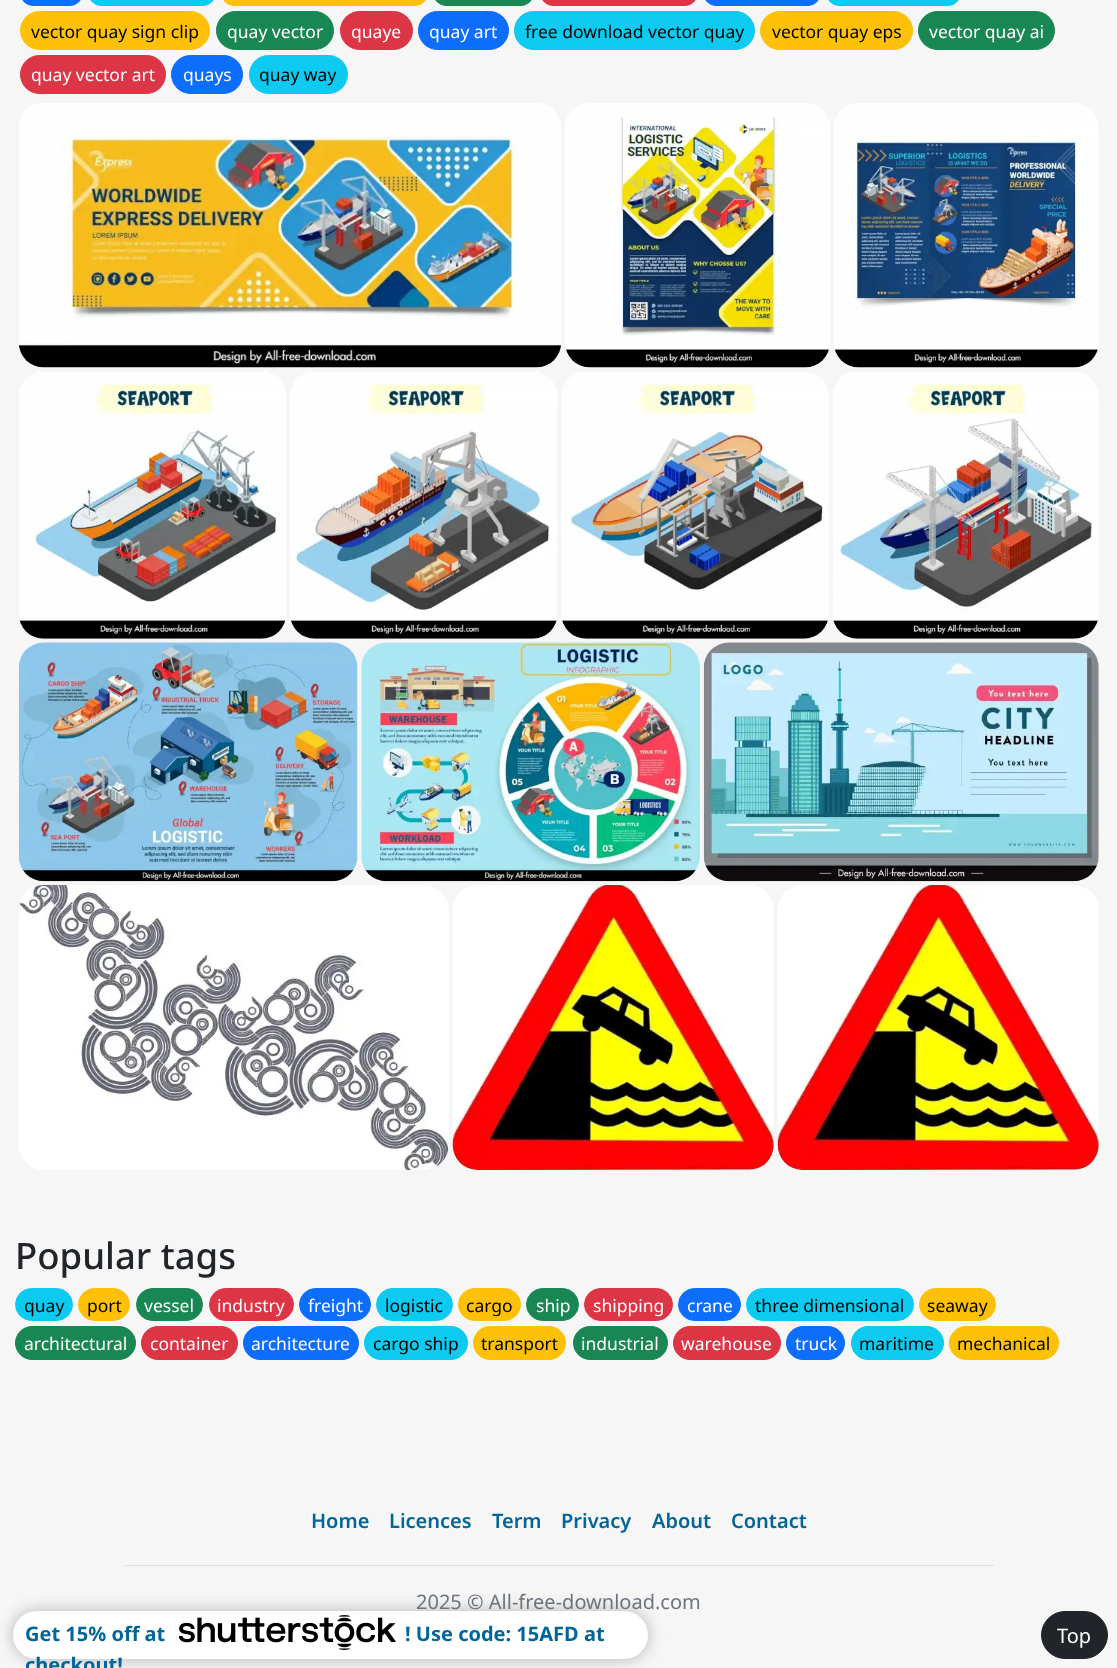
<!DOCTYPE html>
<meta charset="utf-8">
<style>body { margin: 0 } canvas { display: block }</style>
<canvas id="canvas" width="1117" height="1668"></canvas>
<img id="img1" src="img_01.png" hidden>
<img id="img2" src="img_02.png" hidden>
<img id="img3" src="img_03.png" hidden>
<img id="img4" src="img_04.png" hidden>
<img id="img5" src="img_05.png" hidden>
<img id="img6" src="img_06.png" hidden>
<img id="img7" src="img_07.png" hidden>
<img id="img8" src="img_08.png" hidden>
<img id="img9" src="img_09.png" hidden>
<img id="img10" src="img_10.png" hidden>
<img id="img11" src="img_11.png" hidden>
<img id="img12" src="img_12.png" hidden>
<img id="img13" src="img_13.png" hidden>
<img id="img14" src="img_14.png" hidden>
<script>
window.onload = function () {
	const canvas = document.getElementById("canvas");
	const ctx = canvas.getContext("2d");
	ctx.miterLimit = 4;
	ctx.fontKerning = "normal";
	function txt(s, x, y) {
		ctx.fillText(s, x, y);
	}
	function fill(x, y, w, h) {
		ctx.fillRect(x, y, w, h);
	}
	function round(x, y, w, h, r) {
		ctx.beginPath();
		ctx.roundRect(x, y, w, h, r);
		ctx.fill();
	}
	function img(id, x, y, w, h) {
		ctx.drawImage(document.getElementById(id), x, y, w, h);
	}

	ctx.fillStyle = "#F6F6F6";
	fill(0, 0, 1117, 1668);
	ctx.fillStyle = "#0D6EFD";
	ctx.beginPath();
	ctx.roundRect(20.5, -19.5, 62, 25, 18.5);
	ctx.fill();
	ctx.strokeStyle = "#0D6EFD";
	ctx.stroke();
	ctx.fillStyle = "#0DCAF0";
	ctx.beginPath();
	ctx.roundRect(88.5, -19.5, 127, 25, 18.5);
	ctx.fill();
	ctx.strokeStyle = "#0DCAF0";
	ctx.stroke();
	ctx.fillStyle = "#FFC107";
	ctx.beginPath();
	ctx.roundRect(221.5, -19.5, 206, 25, 18.5);
	ctx.fill();
	ctx.strokeStyle = "#FFC107";
	ctx.stroke();
	ctx.fillStyle = "#198754";
	ctx.beginPath();
	ctx.roundRect(433.5, -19.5, 100, 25, 18.5);
	ctx.fill();
	ctx.strokeStyle = "#198754";
	ctx.stroke();
	ctx.fillStyle = "#DC3545";
	ctx.beginPath();
	ctx.roundRect(540.5, -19.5, 157, 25, 18.5);
	ctx.fill();
	ctx.strokeStyle = "#DC3545";
	ctx.stroke();
	ctx.fillStyle = "#0D6EFD";
	ctx.beginPath();
	ctx.roundRect(703.5, -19.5, 117, 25, 18.5);
	ctx.fill();
	ctx.strokeStyle = "#0D6EFD";
	ctx.stroke();
	ctx.fillStyle = "#0DCAF0";
	ctx.beginPath();
	ctx.roundRect(826.5, -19.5, 134, 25, 18.5);
	ctx.fill();
	ctx.strokeStyle = "#0DCAF0";
	ctx.stroke();
	ctx.fillStyle = "#FFC107";
	ctx.beginPath();
	ctx.roundRect(20.5, 11.5, 189, 38, 19);
	ctx.fill();
	ctx.strokeStyle = "#FFC107";
	ctx.stroke();
	ctx.fillStyle = "#198754";
	ctx.beginPath();
	ctx.roundRect(216.5, 11.5, 117, 38, 19);
	ctx.fill();
	ctx.strokeStyle = "#198754";
	ctx.stroke();
	ctx.fillStyle = "#DC3545";
	ctx.beginPath();
	ctx.roundRect(340.5, 11.5, 72, 38, 19);
	ctx.fill();
	ctx.strokeStyle = "#DC3545";
	ctx.stroke();
	ctx.fillStyle = "#0D6EFD";
	ctx.beginPath();
	ctx.roundRect(418.5, 11.5, 90, 38, 19);
	ctx.fill();
	ctx.strokeStyle = "#0D6EFD";
	ctx.stroke();
	ctx.fillStyle = "#0DCAF0";
	ctx.beginPath();
	ctx.roundRect(514.5, 11.5, 240, 38, 19);
	ctx.fill();
	ctx.strokeStyle = "#0DCAF0";
	ctx.stroke();
	ctx.fillStyle = "#FFC107";
	ctx.beginPath();
	ctx.roundRect(760.5, 11.5, 152, 38, 19);
	ctx.fill();
	ctx.strokeStyle = "#FFC107";
	ctx.stroke();
	ctx.fillStyle = "#198754";
	ctx.beginPath();
	ctx.roundRect(918.5, 11.5, 136, 38, 19);
	ctx.fill();
	ctx.strokeStyle = "#198754";
	ctx.stroke();
	ctx.fillStyle = "#DC3545";
	ctx.beginPath();
	ctx.roundRect(20.5, 55.5, 145, 38, 19);
	ctx.fill();
	ctx.strokeStyle = "#DC3545";
	ctx.stroke();
	ctx.fillStyle = "#0D6EFD";
	ctx.beginPath();
	ctx.roundRect(171.5, 55.5, 71, 38, 19);
	ctx.fill();
	ctx.strokeStyle = "#0D6EFD";
	ctx.stroke();
	ctx.fillStyle = "#0DCAF0";
	ctx.beginPath();
	ctx.roundRect(249.5, 55.5, 98, 38, 19);
	ctx.fill();
	ctx.strokeStyle = "#0DCAF0";
	ctx.stroke();
	img("img1", 19, 103, 542, 265);
	img("img2", 565, 103, 265, 265);
	img("img3", 834, 103, 265, 265);
	img("img4", 19, 371, 267, 268);
	img("img5", 290, 371, 267, 268);
	img("img6", 561, 372, 268, 267);
	img("img7", 833, 371, 266, 268);
	img("img8", 18, 642, 340, 240);
	img("img9", 361, 642, 339, 240);
	img("img10", 703, 642, 396, 240);
	img("img11", 19, 885, 430, 285);
	img("img12", 452, 885, 322, 285);
	img("img13", 777, 885, 322, 285);
	ctx.beginPath();
	ctx.roundRect(15.5, 1288.5, 57, 32, 16);
	ctx.fill();
	ctx.stroke();
	ctx.fillStyle = "#FFC107";
	ctx.beginPath();
	ctx.roundRect(78.5, 1288.5, 51, 32, 16);
	ctx.fill();
	ctx.strokeStyle = "#FFC107";
	ctx.stroke();
	ctx.fillStyle = "#198754";
	ctx.beginPath();
	ctx.roundRect(136.5, 1288.5, 66, 32, 16);
	ctx.fill();
	ctx.strokeStyle = "#198754";
	ctx.stroke();
	ctx.fillStyle = "#DC3545";
	ctx.beginPath();
	ctx.roundRect(209.5, 1288.5, 84, 32, 16);
	ctx.fill();
	ctx.strokeStyle = "#DC3545";
	ctx.stroke();
	ctx.fillStyle = "#0D6EFD";
	ctx.beginPath();
	ctx.roundRect(299.5, 1288.5, 71, 32, 16);
	ctx.fill();
	ctx.strokeStyle = "#0D6EFD";
	ctx.stroke();
	ctx.fillStyle = "#0DCAF0";
	ctx.beginPath();
	ctx.roundRect(376.5, 1288.5, 76, 32, 16);
	ctx.fill();
	ctx.strokeStyle = "#0DCAF0";
	ctx.stroke();
	ctx.fillStyle = "#FFC107";
	ctx.beginPath();
	ctx.roundRect(458.5, 1288.5, 62, 32, 16);
	ctx.fill();
	ctx.strokeStyle = "#FFC107";
	ctx.stroke();
	ctx.fillStyle = "#198754";
	ctx.beginPath();
	ctx.roundRect(526.5, 1288.5, 52, 32, 16);
	ctx.fill();
	ctx.strokeStyle = "#198754";
	ctx.stroke();
	ctx.fillStyle = "#DC3545";
	ctx.beginPath();
	ctx.roundRect(584.5, 1288.5, 88, 32, 16);
	ctx.fill();
	ctx.strokeStyle = "#DC3545";
	ctx.stroke();
	ctx.fillStyle = "#0D6EFD";
	ctx.beginPath();
	ctx.roundRect(678.5, 1288.5, 62, 32, 16);
	ctx.fill();
	ctx.strokeStyle = "#0D6EFD";
	ctx.stroke();
	ctx.fillStyle = "#0DCAF0";
	ctx.beginPath();
	ctx.roundRect(746.5, 1288.5, 167, 32, 16);
	ctx.fill();
	ctx.strokeStyle = "#0DCAF0";
	ctx.stroke();
	ctx.fillStyle = "#FFC107";
	ctx.beginPath();
	ctx.roundRect(919.5, 1288.5, 76, 32, 16);
	ctx.fill();
	ctx.strokeStyle = "#FFC107";
	ctx.stroke();
	ctx.fillStyle = "#198754";
	ctx.beginPath();
	ctx.roundRect(15.5, 1326.5, 120, 33, 16.5);
	ctx.fill();
	ctx.strokeStyle = "#198754";
	ctx.stroke();
	ctx.fillStyle = "#DC3545";
	ctx.beginPath();
	ctx.roundRect(141.5, 1326.5, 96, 33, 16.5);
	ctx.fill();
	ctx.strokeStyle = "#DC3545";
	ctx.stroke();
	ctx.fillStyle = "#0D6EFD";
	ctx.beginPath();
	ctx.roundRect(243.5, 1326.5, 115, 33, 16.5);
	ctx.fill();
	ctx.strokeStyle = "#0D6EFD";
	ctx.stroke();
	ctx.fillStyle = "#0DCAF0";
	ctx.beginPath();
	ctx.roundRect(364.5, 1326.5, 103, 33, 16.5);
	ctx.fill();
	ctx.strokeStyle = "#0DCAF0";
	ctx.stroke();
	ctx.fillStyle = "#FFC107";
	ctx.beginPath();
	ctx.roundRect(473.5, 1326.5, 92, 33, 16.5);
	ctx.fill();
	ctx.strokeStyle = "#FFC107";
	ctx.stroke();
	ctx.fillStyle = "#198754";
	ctx.beginPath();
	ctx.roundRect(573.5, 1326.5, 94, 33, 16.5);
	ctx.fill();
	ctx.strokeStyle = "#198754";
	ctx.stroke();
	ctx.fillStyle = "#DC3545";
	ctx.beginPath();
	ctx.roundRect(673.5, 1326.5, 107, 33, 16.5);
	ctx.fill();
	ctx.strokeStyle = "#DC3545";
	ctx.stroke();
	ctx.fillStyle = "#0D6EFD";
	ctx.beginPath();
	ctx.roundRect(786.5, 1326.5, 58, 33, 16.5);
	ctx.fill();
	ctx.strokeStyle = "#0D6EFD";
	ctx.stroke();
	ctx.fillStyle = "#0DCAF0";
	ctx.beginPath();
	ctx.roundRect(851.5, 1326.5, 92, 33, 16.5);
	ctx.fill();
	ctx.strokeStyle = "#0DCAF0";
	ctx.stroke();
	ctx.fillStyle = "#FFC107";
	ctx.beginPath();
	ctx.roundRect(949.5, 1326.5, 109, 33, 16.5);
	ctx.fill();
	ctx.strokeStyle = "#FFC107";
	ctx.stroke();
	ctx.fillStyle = "#DEE2E6";
	fill(124, 1565, 870, 1);
	ctx.fillStyle = "rgba(35, 31, 32, 0.3)";
	ctx.filter = "blur(8px)";
	ctx.beginPath();
	ctx.roundRect(13, 1611, 635, 48, 24);
	ctx.fill();
	ctx.filter = "none";
	ctx.fillStyle = "#FFFFFF";
	round(13, 1611, 635, 48, 24);
	img("img14", 179, 1615, 217, 35);
	ctx.fillStyle = "#212529";
	ctx.beginPath();
	ctx.roundRect(1041.5, 1611.5, 66, 47, 23.5);
	ctx.fill();
	ctx.strokeStyle = "#212529";
	ctx.stroke();
	ctx.font = "17.5px Noto Sans";
	ctx.fillStyle = "#000000";
	txt("vector quay sign clip", 31, 38);
	ctx.fillStyle = "#FFFFFF";
	txt("quay vector", 227, 38);
	txt("quaye", 351, 38);
	txt("quay art", 429, 38);
	ctx.fillStyle = "#000000";
	txt("free download vector quay", 525, 38);
	txt("vector quay eps", 772, 38);
	ctx.fillStyle = "#FFFFFF";
	txt("vector quay ai", 929, 38);
	txt("quay vector art", 31, 81);
	txt("quays", 183, 81);
	ctx.fillStyle = "#000000";
	txt("quay way", 259, 81);
	ctx.font = "500 36.5px Noto Sans";
	ctx.fillStyle = "#212529";
	txt("Popular tags", 15, 1269);
	ctx.font = "17.5px Noto Sans";
	ctx.fillStyle = "#000000";
	txt("quay", 24, 1312);
	txt("port", 87, 1312);
	ctx.fillStyle = "#FFFFFF";
	txt("vessel", 144, 1312);
	txt("industry", 217, 1312);
	txt("freight", 308, 1312);
	ctx.fillStyle = "#000000";
	txt("logistic", 385, 1312);
	txt("cargo", 466, 1312);
	ctx.fillStyle = "#FFFFFF";
	txt("ship", 536, 1312);
	txt("shipping", 593, 1312);
	txt("crane", 687, 1312);
	ctx.fillStyle = "#000000";
	txt("three dimensional", 755, 1312);
	txt("seaway", 927, 1312);
	ctx.fillStyle = "#FFFFFF";
	txt("architectural", 24, 1350);
	txt("container", 150, 1350);
	txt("architecture", 251, 1350);
	ctx.fillStyle = "#000000";
	txt("cargo ship", 373, 1350);
	txt("transport", 481, 1350);
	ctx.fillStyle = "#FFFFFF";
	txt("industrial", 581, 1350);
	txt("warehouse", 681, 1350);
	txt("truck", 795, 1350);
	ctx.fillStyle = "#000000";
	txt("maritime", 859, 1350);
	txt("mechanical", 957, 1350);
	ctx.font = "600 20px Noto Sans";
	ctx.fillStyle = "#006699";
	txt("Home", 311, 1528);
	txt("Licences", 389, 1528);
	txt("Term", 492, 1528);
	txt("Privacy", 561, 1528);
	txt("About", 652, 1528);
	txt("Contact", 731, 1528);
	ctx.font = "20px Noto Sans";
	ctx.fillStyle = "#6C757D";
	txt("2025 © All-free-download.com", 416, 1609);
	ctx.font = "bold 20px Noto Sans";
	ctx.fillStyle = "#006699";
	txt("Get 15% off at", 25, 1641);
	txt("! Use code: 15AFD at", 405, 1641);
	txt("checkout!", 25, 1672);
	ctx.font = "20px Noto Sans";
	ctx.fillStyle = "#FFFFFF";
	txt("Top", 1057, 1643);
};
</script>
